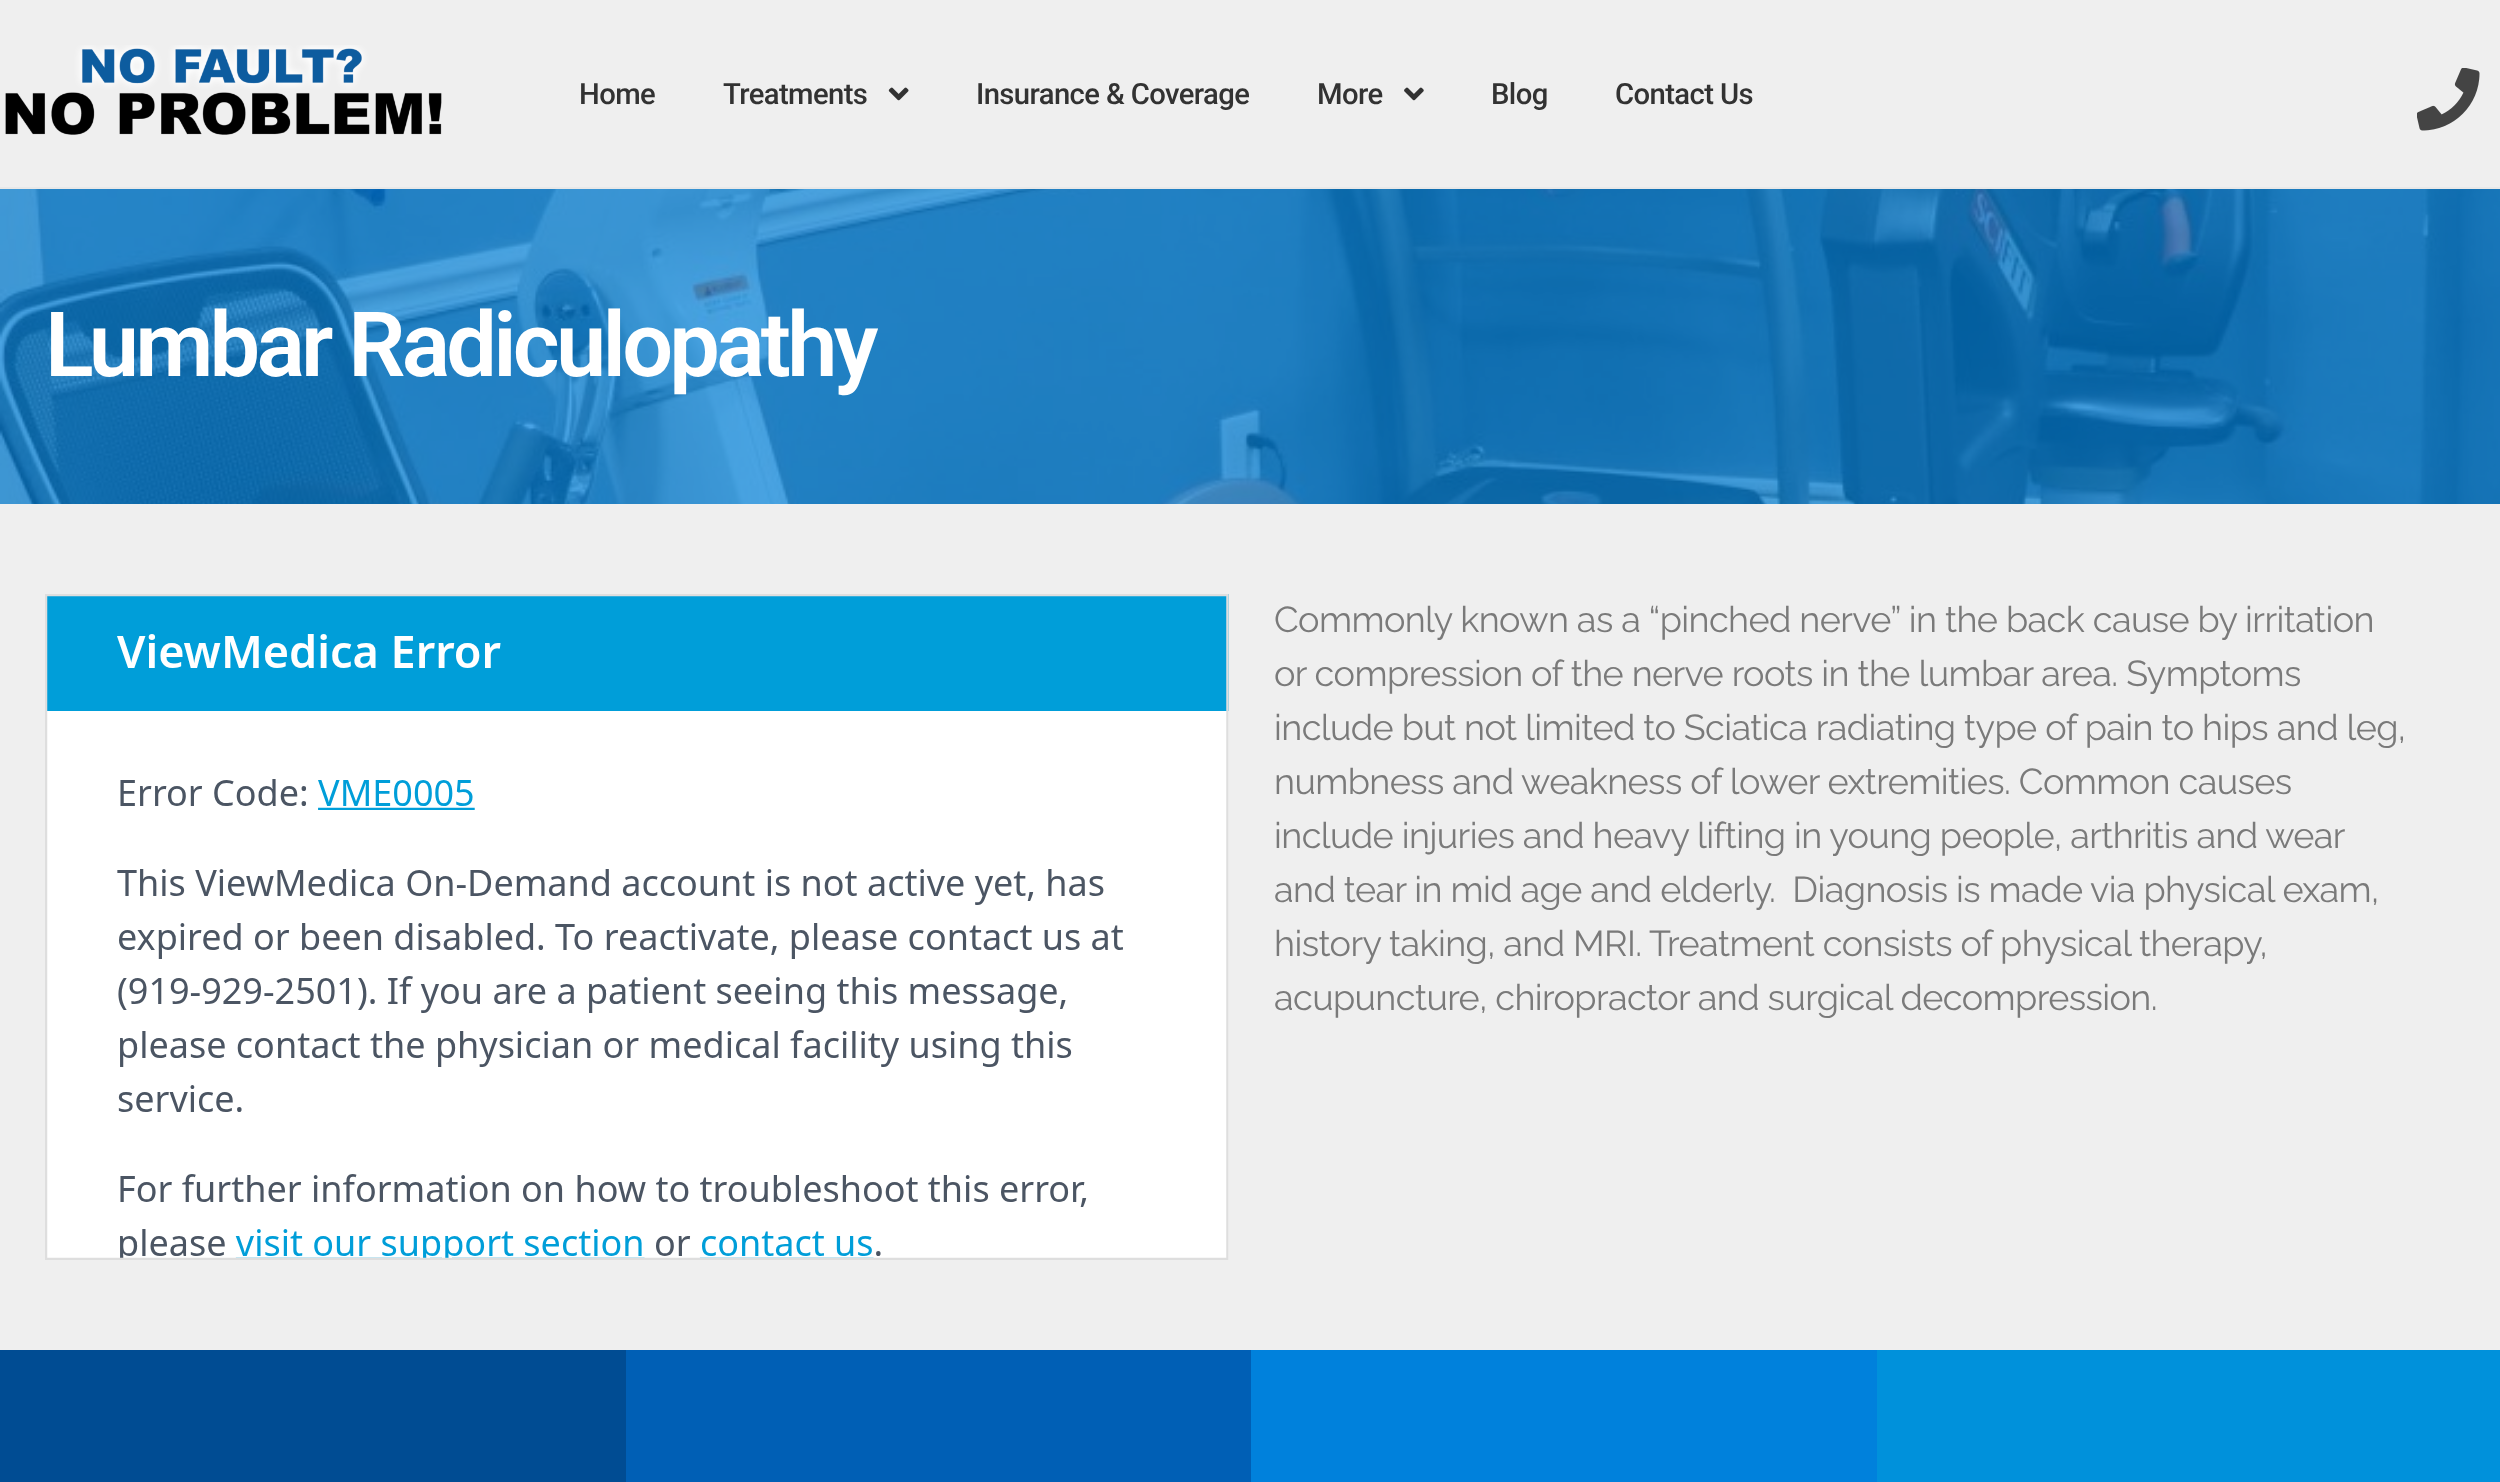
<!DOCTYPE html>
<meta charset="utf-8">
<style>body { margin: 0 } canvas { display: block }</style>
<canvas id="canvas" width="2500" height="1482"></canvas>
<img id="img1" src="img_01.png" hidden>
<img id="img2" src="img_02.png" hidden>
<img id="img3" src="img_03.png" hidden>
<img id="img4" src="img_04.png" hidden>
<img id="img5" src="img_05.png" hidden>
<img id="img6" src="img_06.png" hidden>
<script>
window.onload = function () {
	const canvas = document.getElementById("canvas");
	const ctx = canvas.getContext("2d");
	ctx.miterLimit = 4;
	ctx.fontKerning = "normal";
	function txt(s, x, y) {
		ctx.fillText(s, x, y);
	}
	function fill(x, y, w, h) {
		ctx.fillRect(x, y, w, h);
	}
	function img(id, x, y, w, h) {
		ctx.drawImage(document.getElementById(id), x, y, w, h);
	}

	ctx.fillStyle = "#EFEFEF";
	fill(0, 0, 2500, 1482);
	ctx.fillStyle = "#E8E8E8";
	fill(0, 187, 2500, 2);
	img("img1", 5, 45, 437, 90);
	img("img2", 888, 87, 21, 14);
	img("img3", 1404, 87, 20, 14);
	img("img4", 2417, 68, 63, 63);
	img("img5", 0, 189, 2500, 315);
	img("img6", 45, 594, 1184, 666);
	ctx.fillStyle = "#004C93";
	fill(0, 1350, 626, 132);
	ctx.fillStyle = "#005FB5";
	fill(626, 1350, 625, 132);
	ctx.fillStyle = "#0081DC";
	fill(1251, 1350, 626, 132);
	ctx.fillStyle = "#0091DB";
	fill(1877, 1350, 623, 132);
	ctx.letterSpacing = "-0.6px";
	ctx.font = "500 29.25px Roboto";
	ctx.fillStyle = "#323232";
	txt("Home", 579, 104);
	txt("Treatments", 723, 104);
	txt("Insurance & Coverage", 976, 104);
	txt("More", 1317, 104);
	txt("Blog", 1491, 104);
	txt("Contact Us", 1615, 104);
	ctx.letterSpacing = "-3.75px";
	ctx.font = "600 90px Roboto";
	ctx.fillStyle = "#FFFFFF";
	txt("Lumbar Radiculopathy", 45, 376);
	ctx.letterSpacing = "-0.6px";
	ctx.font = "36px Raleway";
	ctx.fillStyle = "#7A7A7A";
	txt("Commonly known as a “pinched nerve” in the back cause by irritation", 1274, 632);
	txt("or compression of the nerve roots in the lumbar area. Symptoms", 1274, 686);
	txt("include but not limited to Sciatica radiating type of pain to hips and leg,", 1274, 740);
	txt("numbness and weakness of lower extremities. Common causes", 1274, 794);
	txt("include injuries and heavy lifting in young people, arthritis and wear", 1274, 848);
	txt("and tear in mid age and elderly.  Diagnosis is made via physical exam,", 1274, 902);
	txt("history taking, and MRI. Treatment consists of physical therapy,", 1274, 956);
	txt("acupuncture, chiropractor and surgical decompression.", 1274, 1010);
};
</script>
